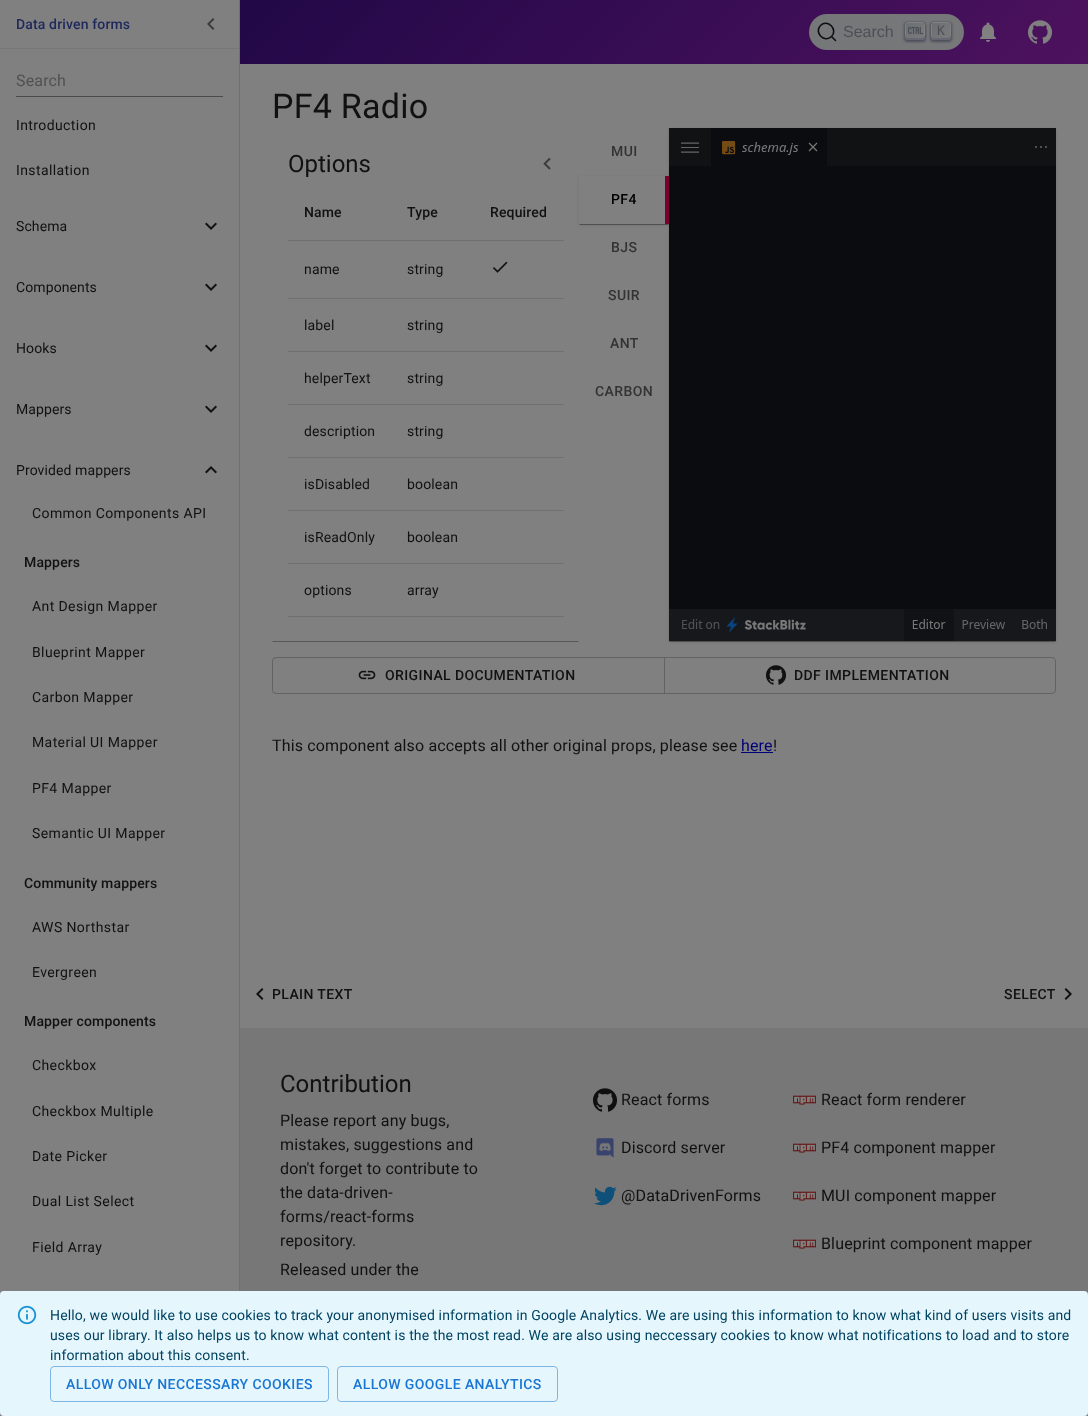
<!DOCTYPE html>
<meta charset="utf-8">
<style>body { margin: 0 } canvas { display: block }</style>
<canvas id="canvas" width="1088" height="1416"></canvas>
<img id="img1" src="img_01.png" hidden>
<img id="img2" src="img_02.png" hidden>
<img id="img3" src="img_03.png" hidden>
<img id="img4" src="img_04.png" hidden>
<img id="img5" src="img_05.png" hidden>
<img id="img6" src="img_06.png" hidden>
<img id="img7" src="img_07.png" hidden>
<img id="img8" src="img_08.png" hidden>
<img id="img9" src="img_09.png" hidden>
<img id="img10" src="img_10.png" hidden>
<img id="img11" src="img_11.png" hidden>
<img id="img12" src="img_12.png" hidden>
<img id="img13" src="img_13.png" hidden>
<img id="img14" src="img_14.png" hidden>
<img id="img15" src="img_15.png" hidden>
<img id="img16" src="img_16.png" hidden>
<img id="img17" src="img_17.png" hidden>
<img id="img18" src="img_18.png" hidden>
<script>
window.onload = function () {
	const canvas = document.getElementById("canvas");
	const ctx = canvas.getContext("2d");
	ctx.miterLimit = 4;
	ctx.fontKerning = "normal";
	function txt(s, x, y) {
		ctx.fillText(s, x, y);
	}
	function fill(x, y, w, h) {
		ctx.fillRect(x, y, w, h);
	}
	function round(x, y, w, h, r) {
		ctx.beginPath();
		ctx.roundRect(x, y, w, h, r);
		ctx.fill();
	}
	function img(id, x, y, w, h) {
		ctx.drawImage(document.getElementById(id), x, y, w, h);
	}
	let gradient;

	ctx.fillStyle = "#808080";
	fill(0, 0, 1088, 1416);
	ctx.fillStyle = "#707070";
	fill(239, 0, 1, 1291);
	ctx.fillStyle = "#777777";
	fill(0, 48, 239, 1);
	img("img1", 207, 18, 8, 12);
	ctx.fillStyle = "#4A4A4A";
	fill(16, 96, 207, 1);
	img("img2", 205, 222, 12, 8);
	img("img2", 205, 283, 12, 8);
	img("img2", 205, 344, 12, 8);
	img("img2", 205, 405, 12, 8);
	img("img3", 205, 466, 12, 8);
	gradient = ctx.createLinearGradient(98, 142, 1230, 1274);
	gradient.addColorStop(0, "#210847");
	gradient.addColorStop(0.45, "#531361");
	gradient.addColorStop(1, "#7E4D2C");
	ctx.fillStyle = gradient;
	fill(240, 0, 848, 64);
	ctx.fillStyle = "#767778";
	round(809, 14, 155, 36, 18);
	ctx.beginPath();
	ctx.moveTo(831.5, 36.5);
	ctx.lineTo(835.5, 40.5);
	ctx.lineTo(831.5, 36.5);
	ctx.bezierCurveTo(824.5, 43.5, 813.5, 32.5, 820.5, 25.5);
	ctx.bezierCurveTo(827.5, 18.5, 838.5, 29.5, 831.5, 36.5);
	ctx.closePath();
	ctx.strokeStyle = "#0E0F11";
	ctx.lineWidth = 1.6;
	ctx.lineCap = "round";
	ctx.lineJoin = "round";
	ctx.stroke();
	ctx.fillStyle = "rgba(15, 18, 45, 0.4)";
	ctx.filter = "blur(1px)";
	ctx.beginPath();
	ctx.roundRect(904, 22, 22, 20, 4);
	ctx.fill();
	ctx.filter = "none";
	gradient = ctx.createLinearGradient(906, 21, 925, 41);
	gradient.addColorStop(0, "#6B6E72");
	gradient.addColorStop(1, "#7C7C7C");
	ctx.fillStyle = gradient;
	ctx.beginPath();
	ctx.roundRect(905.5, 22.5, 19, 17, 2.5);
	ctx.fill();
	ctx.strokeStyle = "#808080";
	ctx.lineWidth = 1;
	ctx.lineJoin = "miter";
	ctx.stroke();
	ctx.fillStyle = "#676773";
	ctx.beginPath();
	ctx.moveTo(925, 34.5);
	ctx.bezierCurveTo(925, 37, 923.5, 38, 920, 38);
	ctx.lineTo(908, 38);
	ctx.bezierCurveTo(906, 38, 905, 36.5, 905, 34.5);
	ctx.lineTo(905, 37);
	ctx.bezierCurveTo(905, 38.5, 906.5, 40, 908, 40);
	ctx.lineTo(922, 40);
	ctx.bezierCurveTo(923.5, 40, 925, 38.5, 925, 37);
	ctx.closePath();
	ctx.fill();
	img("img4", 908, 26, 15, 9);
	ctx.fillStyle = "rgba(15, 18, 45, 0.4)";
	ctx.filter = "blur(1px)";
	ctx.beginPath();
	ctx.roundRect(930, 22, 22, 20, 4);
	ctx.fill();
	ctx.filter = "none";
	gradient = ctx.createLinearGradient(932, 21, 951, 41);
	gradient.addColorStop(0, "#6B6E72");
	gradient.addColorStop(1, "#7C7C7C");
	ctx.fillStyle = gradient;
	ctx.beginPath();
	ctx.roundRect(931.5, 22.5, 19, 17, 2.5);
	ctx.fill();
	ctx.stroke();
	ctx.fillStyle = "#676773";
	ctx.beginPath();
	ctx.moveTo(951, 34.5);
	ctx.bezierCurveTo(951, 37, 949.5, 38, 946, 38);
	ctx.lineTo(934, 38);
	ctx.bezierCurveTo(932, 38, 931, 36.5, 931, 34.5);
	ctx.lineTo(931, 37);
	ctx.bezierCurveTo(931, 38.5, 932.5, 40, 934, 40);
	ctx.lineTo(948, 40);
	ctx.bezierCurveTo(949.5, 40, 951, 38.5, 951, 37);
	ctx.closePath();
	ctx.fill();
	img("img5", 980, 22, 16, 20);
	img("img6", 1028, 20, 24, 24);
	ctx.save();
	ctx.beginPath();
	ctx.rect(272, 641, 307, 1);
	ctx.clip();
	ctx.fillStyle = "rgba(0, 0, 0, 0.14)";
	ctx.filter = "blur(0.5px)";
	ctx.beginPath();
	ctx.rect(272, 129, 307, 513);
	ctx.fill();
	ctx.filter = "none";
	ctx.restore();
	ctx.save();
	ctx.beginPath();
	ctx.rect(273, 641, 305, 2);
	ctx.clip();
	ctx.fillStyle = "rgba(0, 0, 0, 0.2)";
	ctx.filter = "blur(0.5px)";
	ctx.beginPath();
	ctx.rect(273, 131, 305, 511);
	ctx.fill();
	ctx.filter = "none";
	ctx.restore();
	img("img7", 543, 157, 8, 13);
	ctx.fillStyle = "#707070";
	fill(288, 240, 276, 1);
	fill(288, 298, 276, 1);
	img("img8", 492, 261, 16, 12);
	fill(288, 351, 276, 1);
	fill(288, 404, 276, 1);
	fill(288, 457, 276, 1);
	fill(288, 510, 276, 1);
	fill(288, 563, 276, 1);
	fill(288, 616, 276, 1);
	ctx.fillStyle = "rgba(0, 0, 0, 0.12)";
	ctx.filter = "blur(1.5px)";
	ctx.beginPath();
	ctx.rect(579, 177, 90, 48);
	ctx.fill();
	ctx.filter = "none";
	ctx.fillStyle = "rgba(0, 0, 0, 0.14)";
	ctx.filter = "blur(0.5px)";
	ctx.beginPath();
	ctx.rect(579, 177, 90, 48);
	ctx.fill();
	ctx.filter = "none";
	ctx.fillStyle = "rgba(0, 0, 0, 0.2)";
	ctx.filter = "blur(0.5px)";
	ctx.beginPath();
	ctx.rect(580, 179, 88, 46);
	ctx.fill();
	ctx.filter = "none";
	ctx.fillStyle = "#808080";
	fill(579, 176, 86, 48);
	ctx.fillStyle = "#7B002C";
	fill(665, 176, 4, 48);
	ctx.fillStyle = "rgba(0, 0, 0, 0.12)";
	ctx.filter = "blur(1.5px)";
	ctx.beginPath();
	ctx.rect(669, 129, 387, 513);
	ctx.fill();
	ctx.filter = "none";
	ctx.fillStyle = "rgba(0, 0, 0, 0.14)";
	ctx.filter = "blur(0.5px)";
	ctx.beginPath();
	ctx.rect(669, 129, 387, 513);
	ctx.fill();
	ctx.filter = "none";
	ctx.fillStyle = "rgba(0, 0, 0, 0.2)";
	ctx.filter = "blur(0.5px)";
	ctx.beginPath();
	ctx.rect(670, 131, 385, 511);
	ctx.fill();
	ctx.filter = "none";
	img("img9", 669, 128, 387, 513);
	ctx.fillStyle = "#636363";
	ctx.beginPath();
	ctx.moveTo(276, 657);
	ctx.lineTo(273, 658);
	ctx.lineTo(274, 659);
	ctx.lineTo(276, 658);
	ctx.lineTo(664, 658);
	ctx.lineTo(665, 657);
	ctx.closePath();
	ctx.fill();
	ctx.beginPath();
	ctx.moveTo(665, 694);
	ctx.lineTo(664, 693);
	ctx.lineTo(276, 693);
	ctx.lineTo(274, 692);
	ctx.lineTo(273, 693);
	ctx.lineTo(276, 694);
	ctx.closePath();
	ctx.fill();
	ctx.beginPath();
	ctx.moveTo(272, 661);
	ctx.lineTo(272, 690);
	ctx.bezierCurveTo(272, 691, 272.5, 692, 273, 693);
	ctx.lineTo(274, 692);
	ctx.bezierCurveTo(273, 692, 273, 691, 273, 690);
	ctx.lineTo(273, 661);
	ctx.bezierCurveTo(273, 660, 273, 659, 274, 659);
	ctx.lineTo(273, 658);
	ctx.bezierCurveTo(272.5, 659, 272, 660, 272, 661);
	ctx.closePath();
	ctx.fill();
	img("img10", 358, 670, 18, 10);
	ctx.beginPath();
	ctx.roundRect(664.5, 657.5, 391, 36, [0, 3.5, 3.5, 0]);
	ctx.strokeStyle = "#636363";
	ctx.stroke();
	img("img11", 766, 665, 20, 20);
	ctx.fillStyle = "#000077";
	fill(741, 752, 32, 1);
	img("img12", 256, 988, 8, 12);
	img("img13", 1064, 988, 8, 12);
	ctx.fillStyle = "#777777";
	fill(240, 1028, 848, 267);
	img("img14", 593, 1088, 24, 24);
	img("img15", 596, 1138, 18, 20);
	img("img16", 594, 1186, 23, 20);
	img("img17", 793, 1095, 23, 10);
	img("img17", 793, 1143, 23, 10);
	img("img17", 793, 1191, 23, 10);
	img("img17", 793, 1239, 23, 10);
	ctx.fillStyle = "#E5F6FD";
	round(0, 1291, 1088, 125, 4);
	img("img18", 17, 1305, 20, 20);
	ctx.beginPath();
	ctx.roundRect(50.5, 1366.5, 278, 35, 3.5);
	ctx.strokeStyle = "#7FB6E8";
	ctx.stroke();
	ctx.beginPath();
	ctx.roundRect(337.5, 1366.5, 220, 35, 3.5);
	ctx.stroke();
	ctx.letterSpacing = "0.15px";
	ctx.font = "500 14px Roboto";
	ctx.fillStyle = "#20295B";
	txt("Data driven forms", 16, 29);
	ctx.font = "16px Roboto";
	ctx.fillStyle = "#515151";
	txt("Search", 16, 86);
	ctx.letterSpacing = "0.4px";
	ctx.font = "14px Roboto";
	ctx.fillStyle = "#111111";
	txt("Introduction", 16, 130);
	txt("Installation", 16, 175);
	ctx.letterSpacing = "0.1px";
	txt("Schema", 16, 231);
	txt("Components", 16, 292);
	txt("Hooks", 16, 353);
	txt("Mappers", 16, 414);
	txt("Provided mappers", 16, 475);
	ctx.letterSpacing = "0.4px";
	txt("Common Components API", 32, 518);
	ctx.letterSpacing = "0.15px";
	ctx.font = "500 14px Roboto";
	txt("Mappers", 24, 567);
	ctx.letterSpacing = "0.4px";
	ctx.font = "14px Roboto";
	txt("Ant Design Mapper", 32, 611);
	txt("Blueprint Mapper", 32, 657);
	txt("Carbon Mapper", 32, 702);
	txt("Material UI Mapper", 32, 747);
	txt("PF4 Mapper", 32, 793);
	txt("Semantic UI Mapper", 32, 838);
	ctx.letterSpacing = "0.15px";
	ctx.font = "500 14px Roboto";
	txt("Community mappers", 24, 888);
	ctx.letterSpacing = "0.4px";
	ctx.font = "14px Roboto";
	txt("AWS Northstar", 32, 932);
	txt("Evergreen", 32, 977);
	ctx.letterSpacing = "0.15px";
	ctx.font = "500 14px Roboto";
	txt("Mapper components", 24, 1026);
	ctx.letterSpacing = "0.4px";
	ctx.font = "14px Roboto";
	txt("Checkbox", 32, 1070);
	txt("Checkbox Multiple", 32, 1116);
	txt("Date Picker", 32, 1161);
	txt("Dual List Select", 32, 1206);
	txt("Field Array", 32, 1252);
	ctx.letterSpacing = "0px";
	ctx.font = "16px Liberation Sans";
	ctx.fillStyle = "#4B5058";
	txt("Search", 843, 37);
	ctx.font = "13px DejaVu Sans Mono";
	txt("K", 937, 35);
	ctx.letterSpacing = "0.25px";
	ctx.font = "34px Roboto";
	ctx.fillStyle = "#111111";
	txt("PF4 Radio", 272, 118);
	ctx.letterSpacing = "0px";
	ctx.font = "24px Roboto";
	txt("Options", 288, 172);
	ctx.letterSpacing = "0.15px";
	ctx.font = "500 14px Roboto";
	txt("Name", 304, 217);
	txt("Type", 407, 217);
	txt("Required", 490, 217);
	ctx.font = "14px Roboto";
	txt("name", 304, 274);
	txt("string", 407, 274);
	txt("label", 304, 330);
	txt("string", 407, 330);
	txt("helperText", 304, 383);
	txt("string", 407, 383);
	txt("description", 304, 436);
	txt("string", 407, 436);
	txt("isDisabled", 304, 489);
	txt("boolean", 407, 489);
	txt("isReadOnly", 304, 542);
	txt("boolean", 407, 542);
	txt("options", 304, 595);
	txt("array", 407, 595);
	ctx.letterSpacing = "0.4px";
	ctx.font = "500 14px Roboto";
	ctx.fillStyle = "#333333";
	txt("MUI", 611, 156);
	ctx.fillStyle = "#000000";
	txt("PF4", 611, 204);
	ctx.fillStyle = "#333333";
	txt("BJS", 611, 252);
	txt("SUIR", 608, 300);
	txt("ANT", 610, 348);
	txt("CARBON", 595, 396);
	ctx.fillStyle = "#111111";
	txt("ORIGINAL DOCUMENTATION", 385, 680);
	txt("DDF IMPLEMENTATION", 794, 680);
	ctx.letterSpacing = "0.15px";
	ctx.font = "16px Roboto";
	txt("This component also accepts all other original props, please see", 272, 751);
	ctx.fillStyle = "#000077";
	txt("here", 741, 751);
	ctx.fillStyle = "#111111";
	txt("!", 773, 751);
	ctx.letterSpacing = "0.4px";
	ctx.font = "500 14px Roboto";
	txt("PLAIN TEXT", 272, 999);
	txt("SELECT", 1004, 999);
	ctx.letterSpacing = "0px";
	ctx.font = "24px Roboto";
	txt("Contribution", 280, 1092);
	ctx.letterSpacing = "0.15px";
	ctx.font = "16px Roboto";
	txt("Please report any bugs,", 280, 1126);
	txt("mistakes, suggestions and", 280, 1150);
	txt("don't forget to contribute to", 280, 1174);
	txt("the data-driven-", 280, 1198);
	txt("forms/react-forms", 280, 1222);
	txt("repository.", 280, 1246);
	txt("Released under the", 280, 1275);
	txt("React forms", 621, 1105);
	txt("Discord server", 621, 1153);
	txt("@DataDrivenForms", 621, 1201);
	txt("React form renderer", 821, 1105);
	txt("PF4 component mapper", 821, 1153);
	txt("MUI component mapper", 821, 1201);
	txt("Blueprint component mapper", 821, 1249);
	ctx.font = "14px Roboto";
	ctx.fillStyle = "#014361";
	txt("Hello, we would like to use cookies to track your anonymised information in Google Analytics. We are using this information to know what kind of users visits and", 50, 1320);
	txt("uses our library. It also helps us to know what content is the the most read. We are also using neccessary cookies to know what notifications to load and to store", 50, 1340);
	txt("information about this consent.", 50, 1360);
	ctx.letterSpacing = "0.4px";
	ctx.font = "500 14px Roboto";
	ctx.fillStyle = "#1976D2";
	txt("ALLOW ONLY NECCESSARY COOKIES", 66, 1389);
	txt("ALLOW GOOGLE ANALYTICS", 353, 1389);
};
</script>
